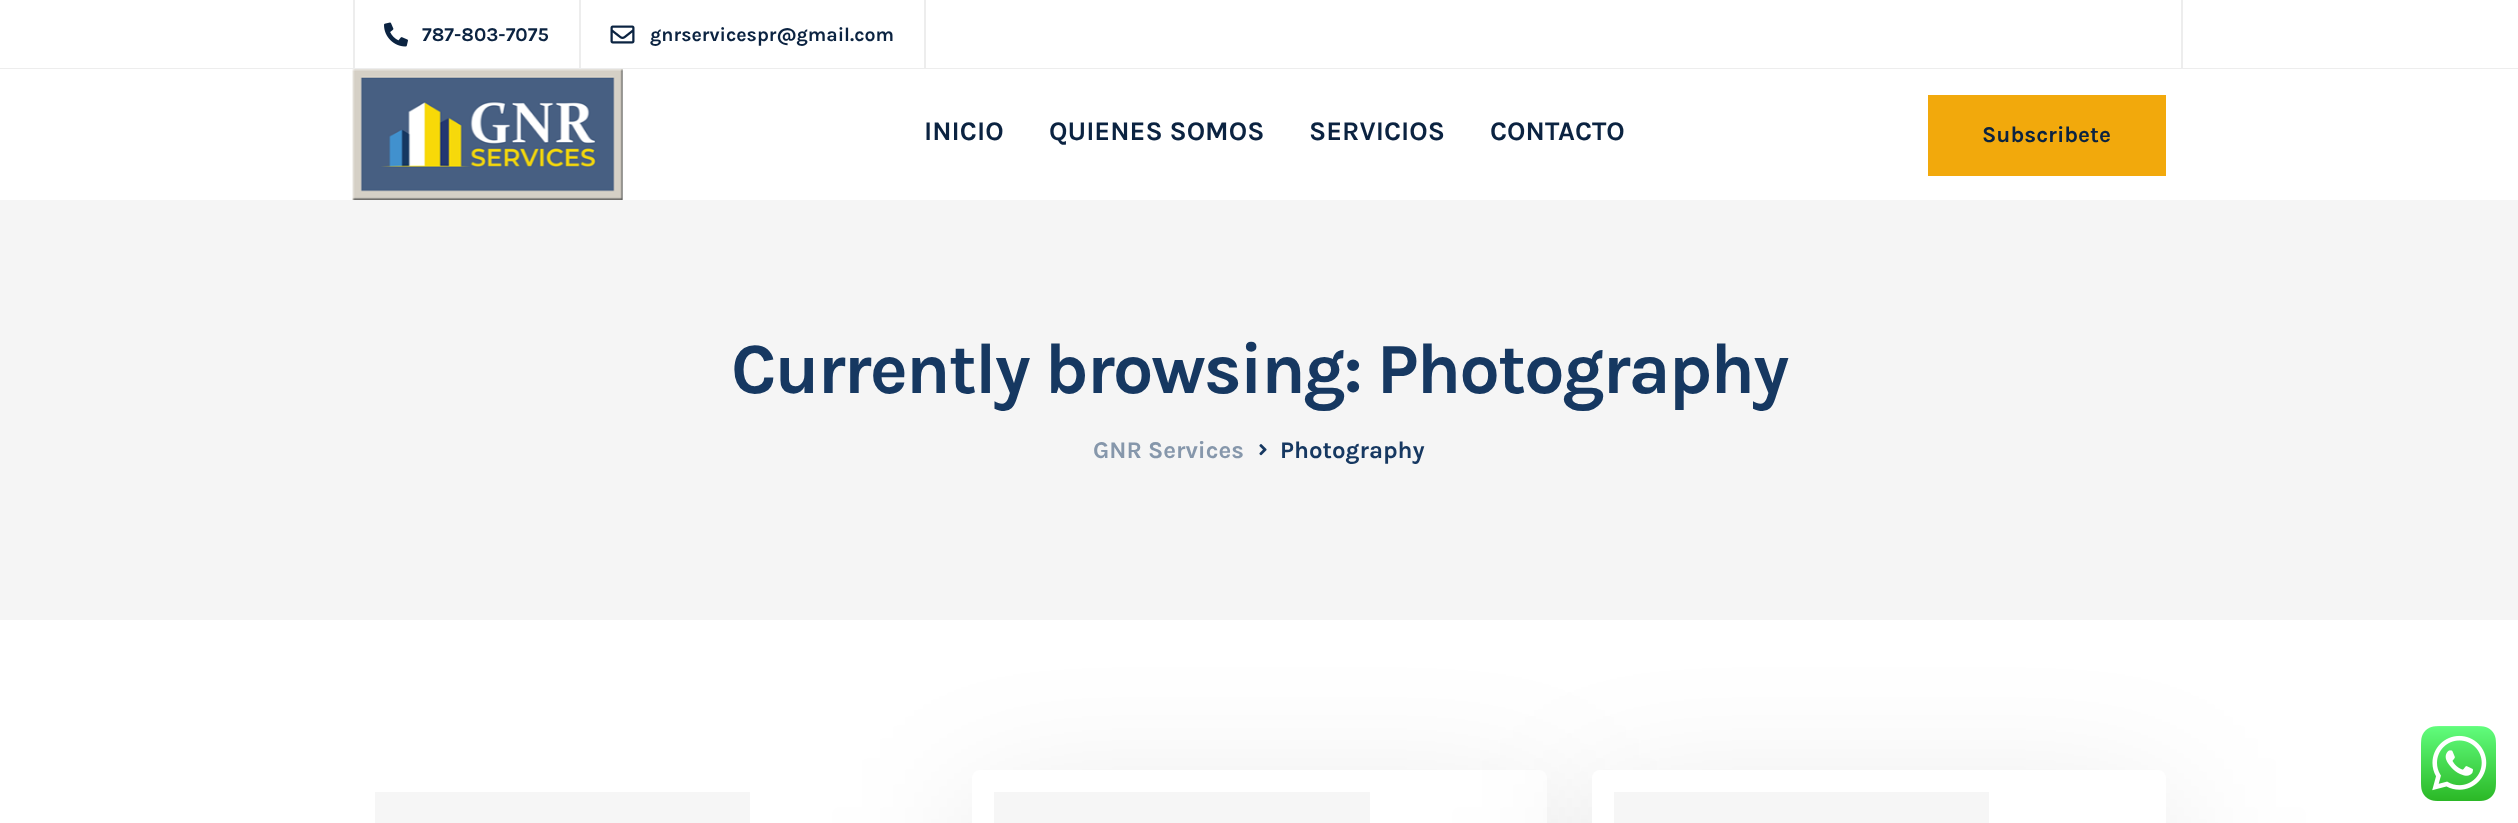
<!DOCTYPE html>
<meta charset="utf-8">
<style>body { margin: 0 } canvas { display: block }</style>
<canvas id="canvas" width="2518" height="823"></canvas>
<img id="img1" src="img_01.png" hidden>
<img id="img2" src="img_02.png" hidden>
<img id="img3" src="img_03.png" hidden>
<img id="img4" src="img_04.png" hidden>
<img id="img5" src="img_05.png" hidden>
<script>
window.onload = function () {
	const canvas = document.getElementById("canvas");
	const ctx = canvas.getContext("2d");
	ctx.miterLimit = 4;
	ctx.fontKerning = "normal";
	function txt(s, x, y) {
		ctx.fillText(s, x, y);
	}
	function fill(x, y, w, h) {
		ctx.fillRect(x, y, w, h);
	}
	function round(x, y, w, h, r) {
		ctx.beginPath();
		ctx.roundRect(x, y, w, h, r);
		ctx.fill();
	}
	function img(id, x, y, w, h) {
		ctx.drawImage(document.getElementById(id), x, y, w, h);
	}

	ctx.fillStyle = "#FFFFFF";
	fill(0, 0, 2518, 823);
	ctx.fillStyle = "#EDEDED";
	fill(0, 68, 2518, 1);
	fill(924, 0, 2, 68);
	fill(353, 0, 2, 68);
	fill(579, 0, 2, 68);
	img("img1", 384, 22, 24, 25);
	img("img2", 610, 25, 25, 19);
	fill(2181, 0, 2, 68);
	img("img3", 352, 69, 271, 131);
	ctx.fillStyle = "#F2A90C";
	fill(1928, 95, 238, 81);
	ctx.fillStyle = "#F5F5F5";
	fill(0, 200, 2518, 420);
	img("img4", 1259, 444, 8, 12);
	ctx.fillStyle = "#F6F6F6";
	fill(375, 792, 375, 31);
	ctx.fillStyle = "rgba(0, 0, 0, 0.1)";
	ctx.filter = "blur(73.5px)";
	ctx.beginPath();
	ctx.roundRect(972, 807, 575, 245, 8);
	ctx.fill();
	ctx.filter = "none";
	ctx.fillStyle = "#FFFFFF";
	round(972, 770, 575, 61, 8);
	ctx.fillStyle = "#F6F6F6";
	fill(994, 792, 376, 31);
	ctx.fillStyle = "rgba(0, 0, 0, 0.1)";
	ctx.filter = "blur(73.5px)";
	ctx.beginPath();
	ctx.roundRect(1592, 807, 574, 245, 8);
	ctx.fill();
	ctx.filter = "none";
	ctx.fillStyle = "#FFFFFF";
	round(1592, 770, 574, 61, 8);
	ctx.fillStyle = "#F6F6F6";
	fill(1614, 792, 375, 31);
	img("img5", 2421, 726, 75, 75);
	ctx.font = "bold 19.5px Karla";
	ctx.fillStyle = "#0B2341";
	txt("787-803-7075", 422, 41);
	txt("gnrservicespr@gmail.com", 650, 41);
	ctx.font = "bold 27px Karla";
	txt("INICIO", 924, 140);
	txt("QUIENES SOMOS", 1049, 140);
	txt("SERVICIOS", 1309, 140);
	txt("CONTACTO", 1490, 140);
	ctx.font = "bold 22.5px Karla";
	txt("Subscribete", 1982, 142);
	ctx.letterSpacing = "-2.15px";
	ctx.font = "bold 72px Karla";
	ctx.fillStyle = "#163861";
	txt("Currently browsing: Photography", 731, 393);
	ctx.letterSpacing = "0px";
	ctx.font = "bold 24px Karla";
	ctx.fillStyle = "#8697AB";
	txt("GNR Services", 1093, 458);
	ctx.fillStyle = "#163861";
	txt("Photography", 1280, 458);
};
</script>
